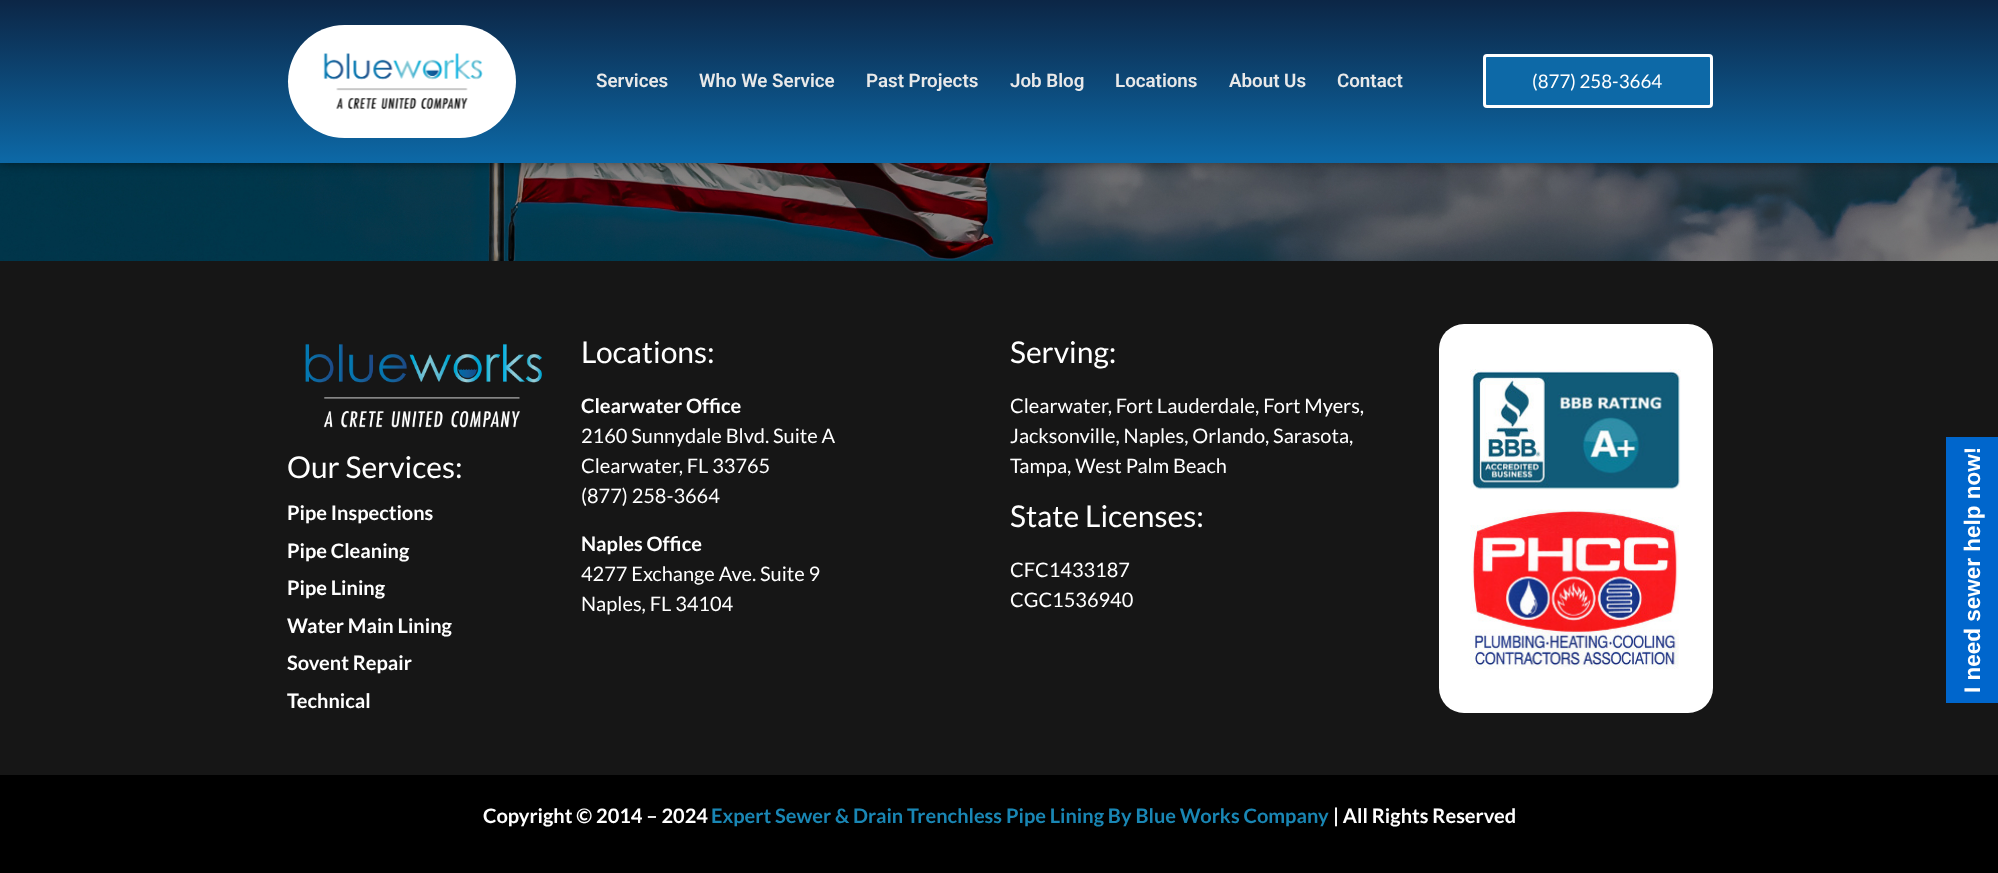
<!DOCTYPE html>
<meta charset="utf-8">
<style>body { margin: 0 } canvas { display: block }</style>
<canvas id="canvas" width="1998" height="873"></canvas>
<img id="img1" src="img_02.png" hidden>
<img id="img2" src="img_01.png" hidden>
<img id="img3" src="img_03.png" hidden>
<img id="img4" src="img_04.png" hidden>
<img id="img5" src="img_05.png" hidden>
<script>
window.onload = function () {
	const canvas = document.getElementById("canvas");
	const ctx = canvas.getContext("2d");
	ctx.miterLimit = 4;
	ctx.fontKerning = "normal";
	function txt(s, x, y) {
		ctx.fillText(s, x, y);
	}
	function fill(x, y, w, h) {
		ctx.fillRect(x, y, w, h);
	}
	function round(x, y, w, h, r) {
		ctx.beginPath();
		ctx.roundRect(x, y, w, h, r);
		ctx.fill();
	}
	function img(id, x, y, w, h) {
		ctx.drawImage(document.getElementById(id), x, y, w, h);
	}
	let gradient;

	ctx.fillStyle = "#FFFFFF";
	fill(0, 0, 1998, 873);
	img("img1", 0, 163, 1998, 98);
	ctx.fillStyle = "rgba(0, 0, 0, 0.5)";
	ctx.filter = "blur(6px)";
	ctx.beginPath();
	ctx.rect(0, 0, 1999, 163);
	ctx.fill();
	ctx.filter = "none";
	gradient = ctx.createLinearGradient(999, 0, 999, 163);
	gradient.addColorStop(0, "#0C2646");
	gradient.addColorStop(1, "#0D69A7");
	ctx.fillStyle = gradient;
	fill(0, 0, 1998, 163);
	ctx.fillStyle = "#FFFFFF";
	round(288, 25, 228, 113, 56.5);
	img("img2", 323, 53, 160, 56);
	ctx.fillStyle = "#0D69A7";
	ctx.beginPath();
	ctx.roundRect(1484.5, 55.5, 227, 51, 2.5);
	ctx.fill();
	ctx.strokeStyle = "#FFFFFF";
	ctx.lineWidth = 3;
	ctx.stroke();
	ctx.fillStyle = "#161616";
	fill(0, 261, 1998, 514);
	img("img3", 305, 343, 237, 85);
	ctx.fillStyle = "#FFFFFF";
	round(1439, 324, 274, 389, 25);
	img("img4", 1470, 369, 211, 121);
	img("img5", 1470, 509, 209, 160);
	ctx.fillStyle = "#000000";
	fill(0, 775, 1998, 98);
	ctx.fillStyle = "#0066CC";
	fill(1946, 437, 52, 266);
	ctx.font = "600 18.75px Roboto";
	ctx.fillStyle = "#E9E9E9";
	txt("Services", 596, 87);
	txt("Who We Service", 699, 87);
	txt("Past Projects", 866, 87);
	txt("Job Blog", 1010, 87);
	txt("Locations", 1115, 87);
	txt("About Us", 1229, 87);
	txt("Contact", 1337, 87);
	ctx.font = "18.75px Lato";
	ctx.fillStyle = "#FFFFFF";
	txt("(877) 258-3664", 1532, 88);
	ctx.font = "30px Lato";
	txt("Our Services:", 287, 478);
	ctx.font = "bold 20px Lato";
	txt("Pipe Inspections", 287, 520);
	txt("Pipe Cleaning", 287, 558);
	txt("Pipe Lining", 287, 595);
	txt("Water Main Lining", 287, 633);
	txt("Sovent Repair", 287, 670);
	txt("Technical", 287, 708);
	ctx.font = "30px Lato";
	txt("Locations:", 581, 363);
	ctx.font = "bold 20px Lato";
	txt("Clearwater Office", 581, 413);
	ctx.font = "20px Lato";
	txt("2160 Sunnydale Blvd. Suite A", 581, 443);
	txt("Clearwater, FL 33765", 581, 473);
	txt("(877) 258-3664", 581, 503);
	ctx.font = "bold 20px Lato";
	txt("Naples Office", 581, 551);
	ctx.font = "20px Lato";
	txt("4277 Exchange Ave. Suite 9", 581, 581);
	txt("Naples, FL 34104", 581, 611);
	ctx.font = "30px Lato";
	txt("Serving:", 1010, 363);
	ctx.font = "20px Lato";
	txt("Clearwater, Fort Lauderdale, Fort Myers,", 1010, 413);
	txt("Jacksonville, Naples, Orlando, Sarasota,", 1010, 443);
	txt("Tampa, West Palm Beach", 1010, 473);
	ctx.font = "30px Lato";
	txt("State Licenses:", 1010, 527);
	ctx.font = "20px Lato";
	txt("CFC1433187", 1010, 577);
	txt("CGC1536940", 1010, 607);
	ctx.font = "bold 20px Lato";
	txt("Copyright © 2014 – 2024", 483, 823);
	ctx.fillStyle = "#1986B4";
	txt("Expert Sewer & Drain Trenchless Pipe Lining By Blue Works Company", 711, 823);
	ctx.fillStyle = "#FFFFFF";
	txt("| All Rights Reserved", 1333, 823);
	ctx.font = "bold 22.5px Liberation Sans";
	ctx.save();
	ctx.translate(1980, 693);
	ctx.rotate(-90 * Math.PI / 180);
	ctx.fillText("I need sewer help now!", 0, 0);
	ctx.restore();
};
</script>
